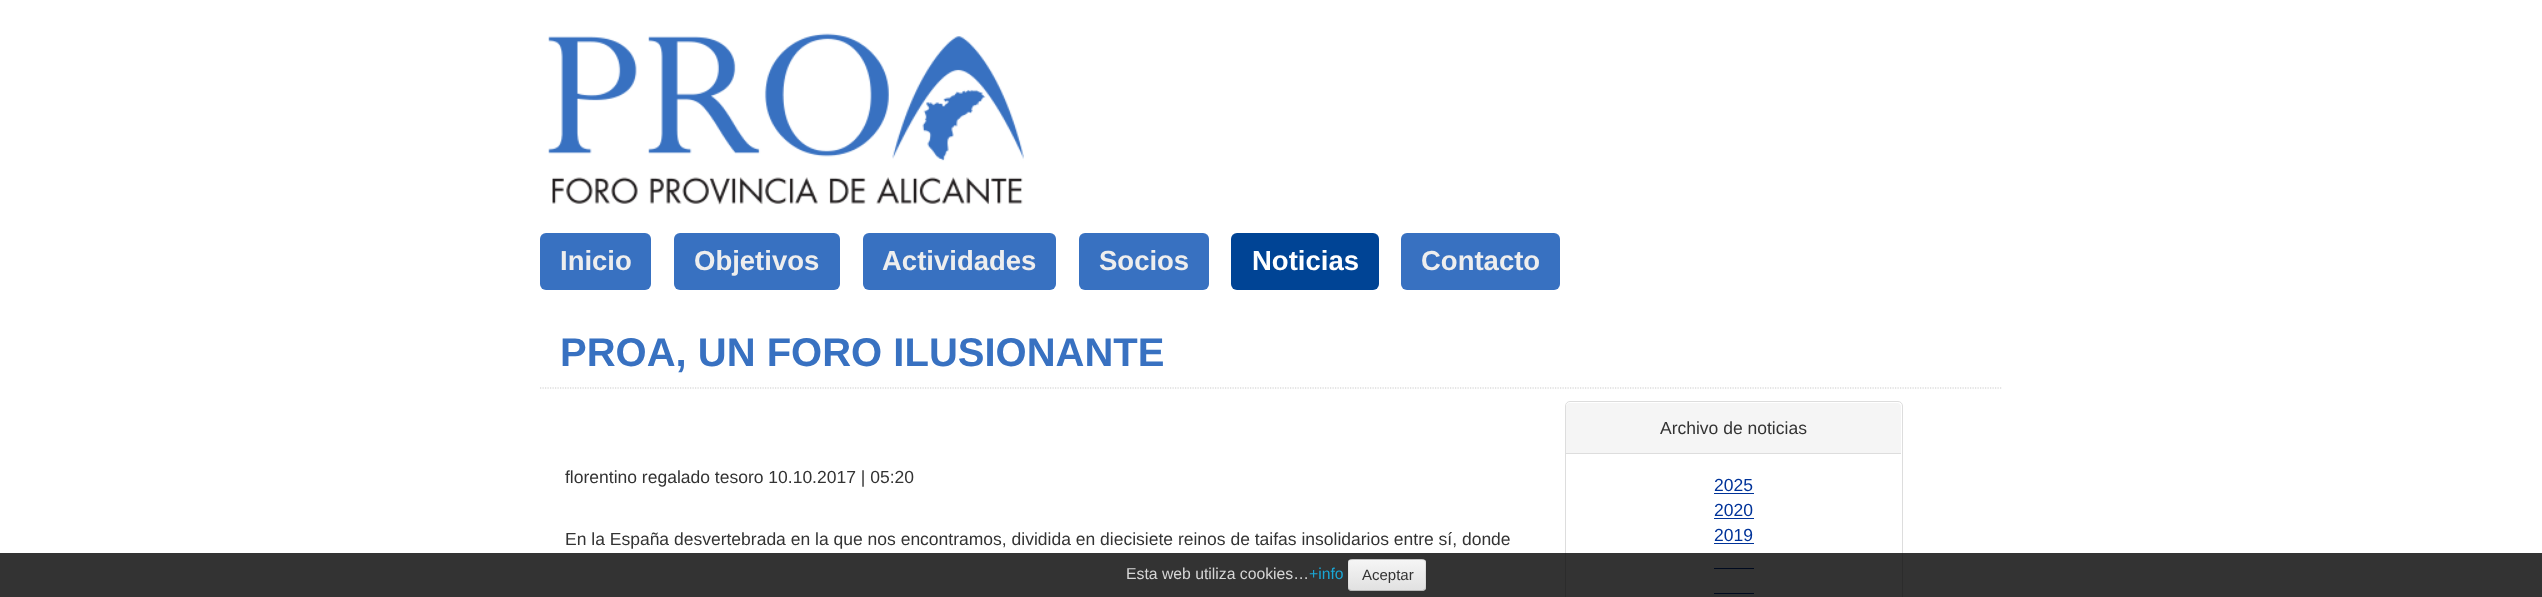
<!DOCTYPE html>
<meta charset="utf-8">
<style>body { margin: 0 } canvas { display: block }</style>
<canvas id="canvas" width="2542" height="597"></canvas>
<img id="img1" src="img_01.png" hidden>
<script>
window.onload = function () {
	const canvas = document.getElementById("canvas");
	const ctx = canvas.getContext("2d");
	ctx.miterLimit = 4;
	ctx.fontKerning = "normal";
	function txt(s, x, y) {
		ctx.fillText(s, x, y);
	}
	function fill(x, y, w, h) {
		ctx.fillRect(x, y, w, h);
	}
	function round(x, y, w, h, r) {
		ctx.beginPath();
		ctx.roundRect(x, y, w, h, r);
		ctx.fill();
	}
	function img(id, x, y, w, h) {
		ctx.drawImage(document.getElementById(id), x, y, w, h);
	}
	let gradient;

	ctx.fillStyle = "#FFFFFF";
	fill(0, 0, 2542, 597);
	img("img1", 548, 33, 476, 172);
	ctx.fillStyle = "#3871C1";
	round(540, 233, 111, 57, 6);
	round(674, 233, 166, 57, 6);
	round(863, 233, 193, 57, 6);
	round(1079, 233, 130, 57, 6);
	ctx.fillStyle = "#004495";
	round(1231, 233, 148, 57, 6);
	ctx.fillStyle = "#3871C1";
	round(1401, 233, 159, 57, 6);
	ctx.beginPath();
	ctx.moveTo(540, 388);
	ctx.lineTo(2002.5, 388);
	ctx.strokeStyle = "#CCCCCC";
	ctx.lineWidth = 1.2;
	ctx.setLineDash([1.25, 1.25]);
	ctx.stroke();
	ctx.beginPath();
	ctx.roundRect(1565.5, 401.5, 337, 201, 4.5);
	ctx.strokeStyle = "#DDDDDD";
	ctx.lineWidth = 1;
	ctx.setLineDash([]);
	ctx.stroke();
	ctx.fillStyle = "#F5F5F5";
	ctx.beginPath();
	ctx.roundRect(1566, 403, 335, 51, [4, 4, 0, 0]);
	ctx.fill();
	ctx.fillStyle = "#DDDDDD";
	fill(1566, 453, 335, 1);
	ctx.fillStyle = "#003399";
	fill(1714, 493, 40, 1);
	fill(1714, 518, 40, 1);
	fill(1714, 543, 40, 1);
	fill(1714, 568, 40, 1);
	fill(1714, 593, 40, 1);
	ctx.fillStyle = "rgba(0, 0, 0, 0.8)";
	fill(0, 554, 2542, 42);
	fill(0, 553, 2542, 1);
	fill(0, 596, 2542, 1);
	ctx.fillStyle = "rgba(245, 245, 245, 0.8)";
	round(1348, 559, 78, 32, 4);
	ctx.save();
	ctx.beginPath();
	ctx.roundRect(1348, 559, 78, 32, 4);
	ctx.clip();
	gradient = ctx.createLinearGradient(1387, 560, 1387, 590);
	gradient.addColorStop(0, "rgba(255, 255, 255, 0.8)");
	gradient.addColorStop(1, "rgba(230, 230, 230, 0.8)");
	ctx.fillStyle = gradient;
	fill(1348, 560, 78, 30);
	ctx.restore();
	ctx.fillStyle = "rgba(255, 255, 255, 0.16)";
	ctx.beginPath();
	ctx.moveTo(1351, 561);
	ctx.lineTo(1422, 561);
	ctx.bezierCurveTo(1424, 561, 1425, 562, 1425, 564);
	ctx.bezierCurveTo(1425, 557, 1416, 560, 1411, 560);
	ctx.lineTo(1363, 560);
	ctx.bezierCurveTo(1358, 560, 1349, 557, 1349, 564);
	ctx.bezierCurveTo(1349, 562, 1350, 561, 1351, 561);
	ctx.closePath();
	ctx.fill();
	ctx.beginPath();
	ctx.moveTo(1424.5, 589.5);
	ctx.lineTo(1423, 590.5);
	ctx.lineTo(1351, 590.5);
	ctx.lineTo(1349, 589.5);
	ctx.strokeStyle = "rgba(179, 179, 179, 0.8)";
	ctx.lineWidth = 1.2;
	ctx.stroke();
	ctx.beginPath();
	ctx.moveTo(1349, 589.5);
	ctx.bezierCurveTo(1347, 587.5, 1348, 578, 1348, 575);
	ctx.bezierCurveTo(1348, 557, 1345, 559.5, 1363, 559.5);
	ctx.lineTo(1410.5, 559.5);
	ctx.bezierCurveTo(1428.5, 559.5, 1425.5, 557, 1425.5, 575);
	ctx.bezierCurveTo(1425.5, 578, 1427, 587.5, 1424.5, 589.5);
	ctx.strokeStyle = "rgba(0, 0, 0, 0.08)";
	ctx.stroke();
	ctx.font = "bold 27.5px Liberation Sans";
	ctx.fillStyle = "#EEEEEE";
	txt("Inicio", 560, 270);
	txt("Objetivos", 694, 270);
	txt("Actividades", 882, 270);
	txt("Socios", 1099, 270);
	ctx.fillStyle = "#FFFFFF";
	txt("Noticias", 1252, 270);
	ctx.fillStyle = "#EEEEEE";
	txt("Contacto", 1421, 270);
	ctx.font = "bold 40px Liberation Sans";
	ctx.fillStyle = "#3871C1";
	txt("PROA, UN FORO ILUSIONANTE", 560, 366);
	ctx.font = "17.5px Liberation Sans";
	ctx.fillStyle = "#333333";
	txt("florentino regalado tesoro 10.10.2017 | 05:20", 565, 483);
	txt("En la España desvertebrada en la que nos encontramos, dividida en diecisiete reinos de taifas insolidarios entre sí, donde", 565, 545);
	txt("Archivo de noticias", 1660, 434);
	ctx.fillStyle = "#003399";
	txt("2025", 1714, 491);
	txt("2020", 1714, 516);
	txt("2019", 1714, 541);
	ctx.font = "15.75px Liberation Sans";
	ctx.fillStyle = "#D6D6D6";
	txt("Esta web utiliza cookies…", 1126, 579);
	ctx.fillStyle = "#1AA7D6";
	txt("+info", 1309, 579);
	ctx.font = "15px Liberation Sans";
	ctx.fillStyle = "#333333";
	txt("Aceptar", 1362, 580);
};
</script>
